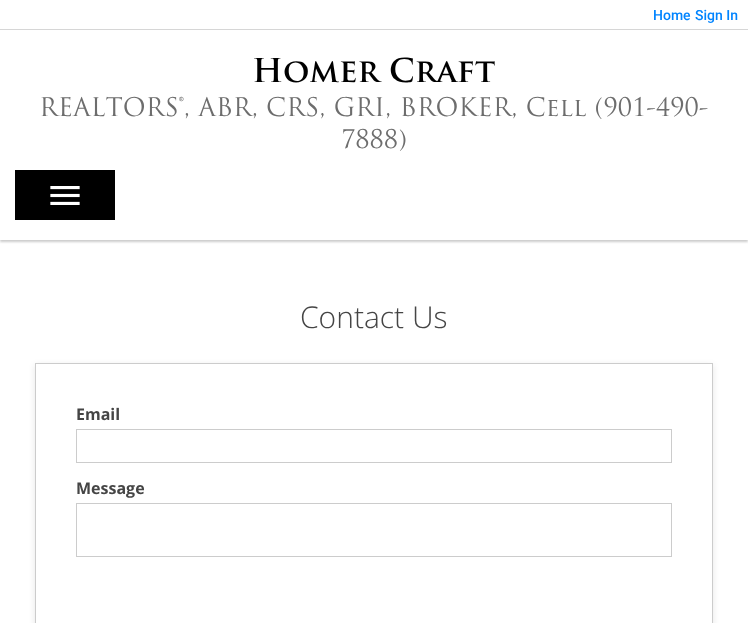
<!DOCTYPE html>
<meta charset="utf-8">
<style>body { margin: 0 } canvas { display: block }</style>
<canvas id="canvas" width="748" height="623"></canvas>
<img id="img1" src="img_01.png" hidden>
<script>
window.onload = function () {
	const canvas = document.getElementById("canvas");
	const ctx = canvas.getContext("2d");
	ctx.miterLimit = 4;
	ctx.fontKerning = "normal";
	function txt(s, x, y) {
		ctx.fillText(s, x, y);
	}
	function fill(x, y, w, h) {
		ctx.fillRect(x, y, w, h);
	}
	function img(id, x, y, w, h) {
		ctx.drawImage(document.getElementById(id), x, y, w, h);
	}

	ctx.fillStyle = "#FFFFFF";
	fill(0, 0, 748, 623);
	ctx.save();
	ctx.beginPath();
	ctx.rect(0, 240, 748, 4);
	ctx.clip();
	ctx.fillStyle = "#CCCCCC";
	ctx.filter = "blur(1px)";
	ctx.beginPath();
	ctx.rect(0, 32, 748, 210);
	ctx.fill();
	ctx.filter = "none";
	ctx.restore();
	ctx.fillStyle = "#D6D6D6";
	fill(0, 29, 748, 1);
	ctx.fillStyle = "#000000";
	fill(15, 170, 100, 50);
	img("img1", 50, 186, 30, 19);
	ctx.save();
	ctx.beginPath();
	ctx.moveTo(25, 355);
	ctx.lineTo(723, 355);
	ctx.lineTo(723, 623);
	ctx.lineTo(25, 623);
	ctx.closePath();
	ctx.moveTo(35, 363);
	ctx.lineTo(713, 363);
	ctx.lineTo(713, 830);
	ctx.lineTo(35, 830);
	ctx.closePath();
	ctx.clip("evenodd");
	ctx.fillStyle = "rgba(0, 0, 0, 0.1)";
	ctx.filter = "blur(3px)";
	ctx.beginPath();
	ctx.rect(35, 365, 678, 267);
	ctx.fill();
	ctx.filter = "none";
	ctx.restore();
	ctx.strokeStyle = "#CCCCCC";
	ctx.strokeRect(35.5, 363.5, 677, 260);
	ctx.strokeRect(76.5, 429.5, 595, 33);
	ctx.strokeRect(76.5, 503.5, 595, 53);
	ctx.font = "500 14px Roboto";
	ctx.fillStyle = "#0084FF";
	txt("Home", 653, 20);
	txt("Sign In", 695, 20);
	ctx.font = "bold 32px 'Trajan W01'";
	ctx.fillStyle = "#000000";
	txt("Homer Craft", 252, 82);
	ctx.font = "25px 'Trajan W01'";
	ctx.fillStyle = "#6D6D6D";
	txt("REALTORS®, ABR, CRS, GRI, BROKER, Cell (901-490-", 39, 116);
	txt("7888)", 341, 148);
	ctx.font = "300 30px Open Sans";
	ctx.fillStyle = "#454545";
	txt("Contact Us", 300, 328);
	ctx.font = "bold 16px Open Sans";
	txt("Email", 76, 420);
	txt("Message", 76, 494);
};
</script>
